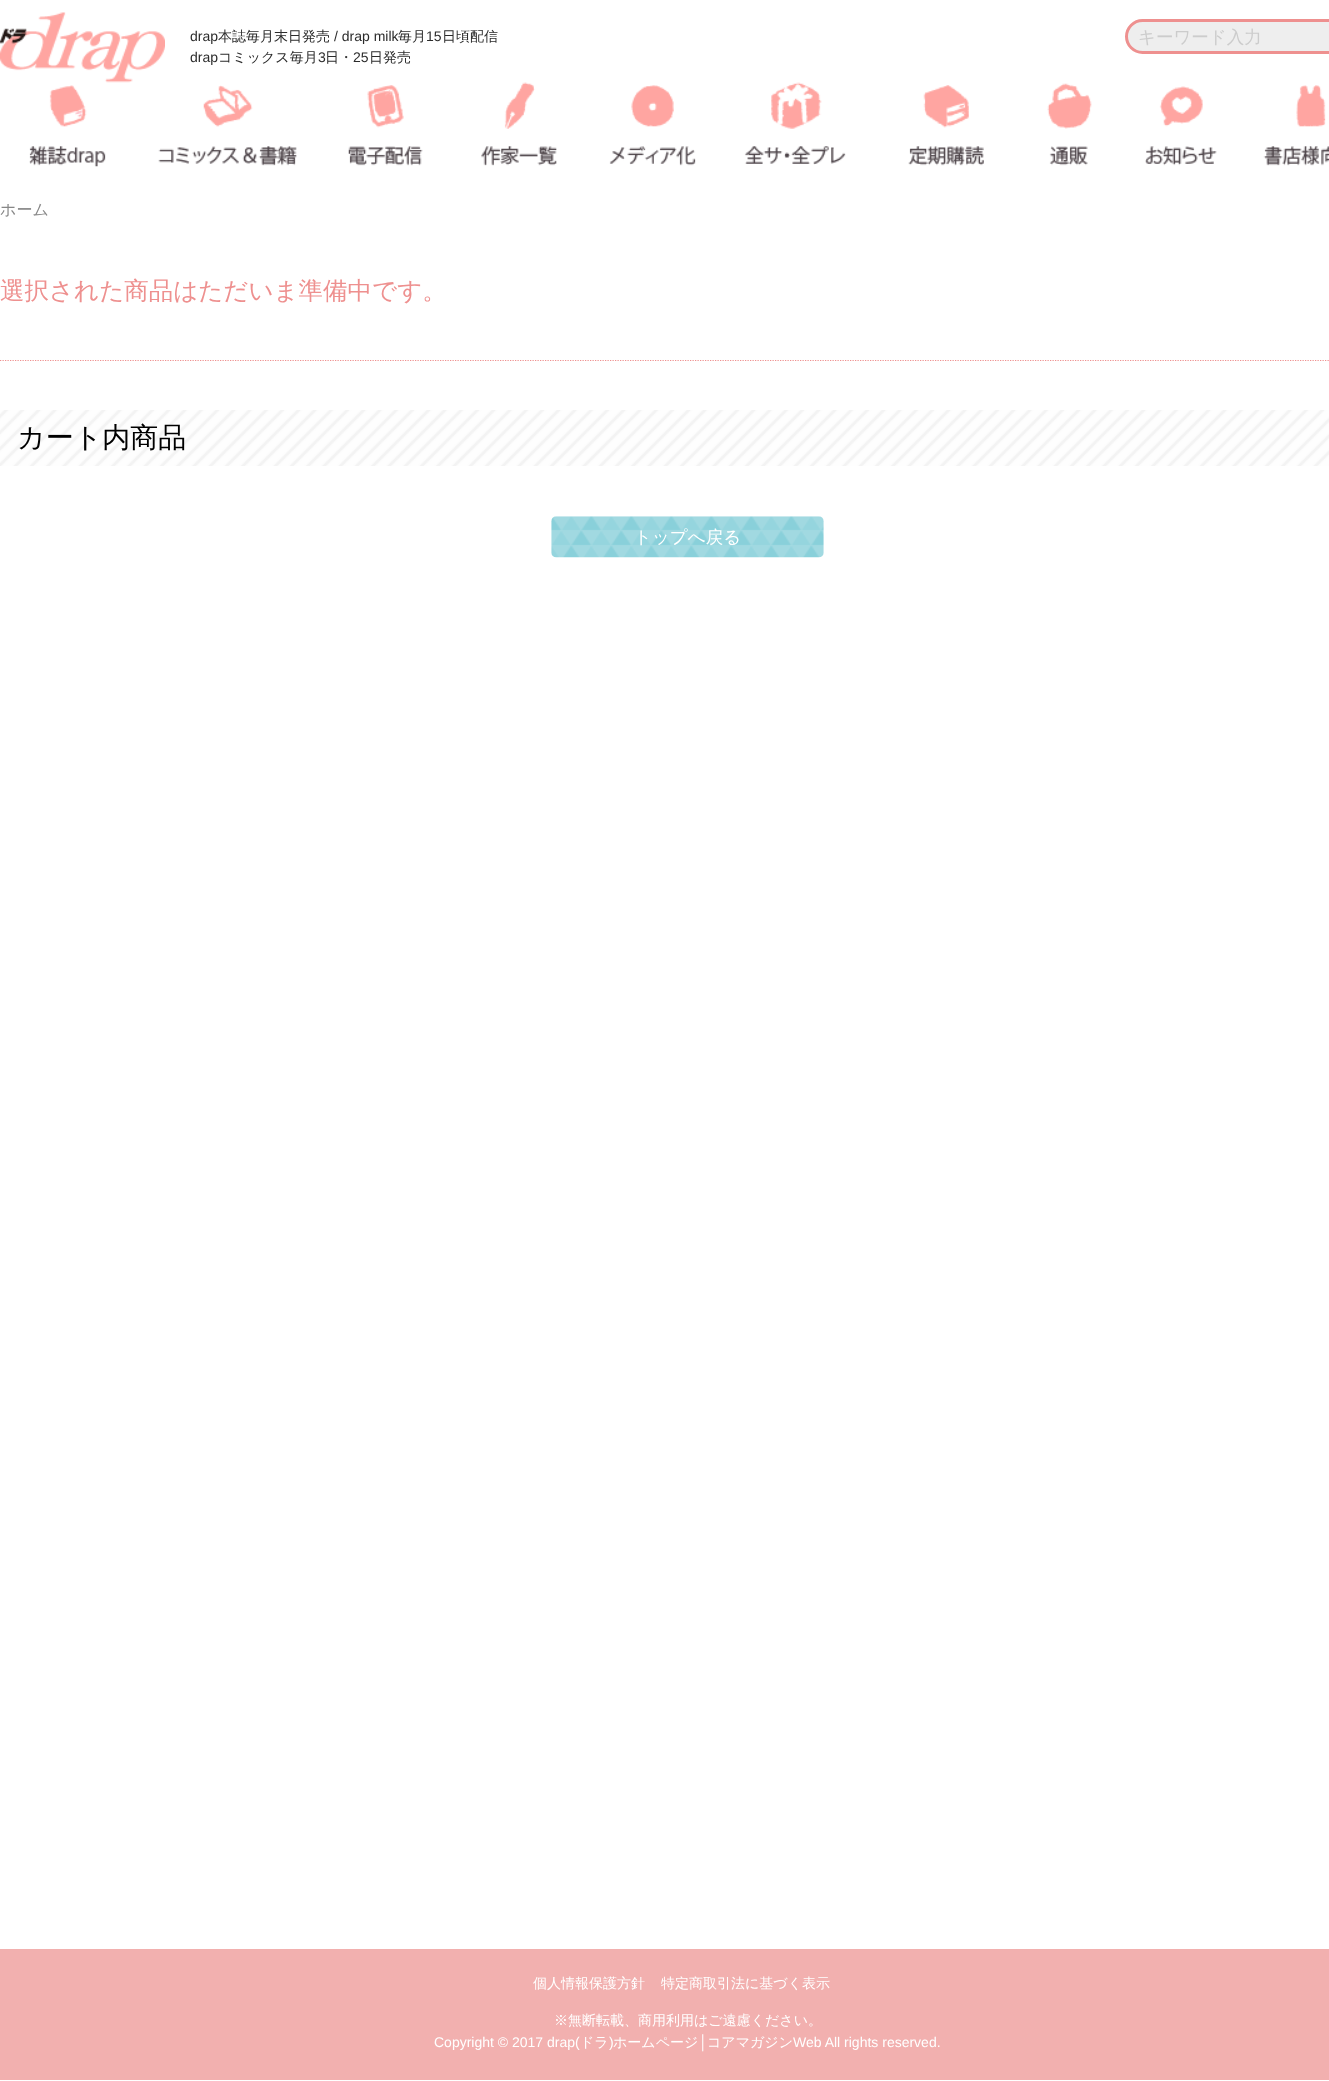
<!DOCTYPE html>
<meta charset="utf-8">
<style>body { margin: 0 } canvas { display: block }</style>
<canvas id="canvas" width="1329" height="2081"></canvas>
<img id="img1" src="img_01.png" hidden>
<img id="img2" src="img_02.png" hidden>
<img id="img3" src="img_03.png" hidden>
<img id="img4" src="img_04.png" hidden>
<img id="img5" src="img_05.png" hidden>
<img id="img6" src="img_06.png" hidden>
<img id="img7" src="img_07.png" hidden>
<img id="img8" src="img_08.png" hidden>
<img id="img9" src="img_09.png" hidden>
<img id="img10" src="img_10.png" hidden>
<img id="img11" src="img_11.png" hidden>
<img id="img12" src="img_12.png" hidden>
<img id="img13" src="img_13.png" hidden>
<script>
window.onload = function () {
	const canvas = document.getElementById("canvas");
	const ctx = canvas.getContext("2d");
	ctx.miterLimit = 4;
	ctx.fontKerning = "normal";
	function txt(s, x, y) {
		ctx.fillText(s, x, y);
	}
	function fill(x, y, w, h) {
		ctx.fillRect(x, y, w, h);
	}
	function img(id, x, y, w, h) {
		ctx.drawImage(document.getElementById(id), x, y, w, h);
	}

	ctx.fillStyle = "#FFFFFF";
	fill(0, 0, 1329, 2081);
	img("img1", 0, 12, 165, 71);
	ctx.fillStyle = "#EEEEEE";
	ctx.beginPath();
	ctx.roundRect(1126.5, 20.5, 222, 32, 16);
	ctx.fill();
	ctx.strokeStyle = "#EE908F";
	ctx.lineWidth = 3;
	ctx.stroke();
	img("img2", 29, 85, 77, 82);
	img("img3", 158, 85, 139, 81);
	img("img4", 348, 85, 75, 81);
	img("img5", 481, 82, 76, 84);
	img("img6", 609, 85, 87, 81);
	img("img7", 744, 82, 102, 83);
	img("img8", 908, 85, 76, 81);
	img("img9", 1047, 83, 45, 83);
	img("img10", 1145, 86, 72, 80);
	img("img11", 1263, 85, 66, 81);
	ctx.beginPath();
	ctx.moveTo(0, 360.5);
	ctx.lineTo(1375, 360.5);
	ctx.lineWidth = 1.2;
	ctx.setLineDash([1.25, 1.25]);
	ctx.stroke();
	img("img12", 0, 410, 1329, 56);
	img("img13", 551, 516, 273, 42);
	ctx.fillStyle = "#F2B0AF";
	fill(0, 1949, 1329, 131);
	ctx.font = "14px Liberation Sans";
	ctx.fillStyle = "#2B2B2B";
	txt("drap", 190, 41);
	ctx.font = "500 14px WenQuanYi Zen Hei";
	txt("本誌毎月末日発売", 218, 41);
	ctx.font = "14px Liberation Sans";
	txt("/ drap milk", 334, 41);
	ctx.font = "500 14px WenQuanYi Zen Hei";
	txt("毎月", 398, 41);
	ctx.font = "14px Liberation Sans";
	txt("15", 426, 41);
	ctx.font = "500 14px WenQuanYi Zen Hei";
	txt("日頃配信", 442, 41);
	ctx.font = "14px Liberation Sans";
	txt("drap", 190, 62);
	ctx.font = "500 14px WenQuanYi Zen Hei";
	txt("コミックス毎月", 218, 62);
	ctx.font = "14px Liberation Sans";
	txt("3", 318, 62);
	ctx.font = "500 14px WenQuanYi Zen Hei";
	txt("日・", 325, 62);
	ctx.font = "14px Liberation Sans";
	txt("25", 353, 62);
	ctx.font = "500 14px WenQuanYi Zen Hei";
	txt("日発売", 369, 62);
	ctx.font = "500 17.5px WenQuanYi Zen Hei";
	ctx.fillStyle = "#CCCCCC";
	txt("キーワード入力", 1138, 43);
	ctx.font = "500 16px WenQuanYi Zen Hei";
	ctx.fillStyle = "#878787";
	txt("ホーム", 0, 215);
	ctx.font = "500 24.5px WenQuanYi Zen Hei";
	ctx.fillStyle = "#EE908F";
	txt("選択された商品はただいま準備中です。", 0, 299);
	ctx.font = "500 28px WenQuanYi Zen Hei";
	ctx.fillStyle = "#000000";
	txt("カート内商品", 17, 447);
	ctx.font = "500 17.5px WenQuanYi Zen Hei";
	ctx.fillStyle = "#FFFFFF";
	txt("トップへ戻る", 634, 543);
	ctx.font = "500 14px WenQuanYi Zen Hei";
	txt("個人情報保護方針", 533, 1988);
	txt("特定商取引法に基づく表示", 661, 1988);
	txt("※無断転載、商用利用はご遠慮ください。", 554, 2025);
	ctx.font = "14px Liberation Sans";
	txt("Copyright © 2017 drap(", 434, 2047);
	ctx.font = "500 14px WenQuanYi Zen Hei";
	txt("ドラ", 580, 2047);
	ctx.font = "14px Liberation Sans";
	txt(")", 609, 2047);
	ctx.font = "500 14px WenQuanYi Zen Hei";
	txt("ホームページ", 613, 2047);
	ctx.font = "14px Liberation Sans";
	txt("│", 699, 2047);
	ctx.font = "500 14px WenQuanYi Zen Hei";
	txt("コアマガジン", 707, 2047);
	ctx.font = "14px Liberation Sans";
	txt("Web All rights reserved.", 793, 2047);
};
</script>
